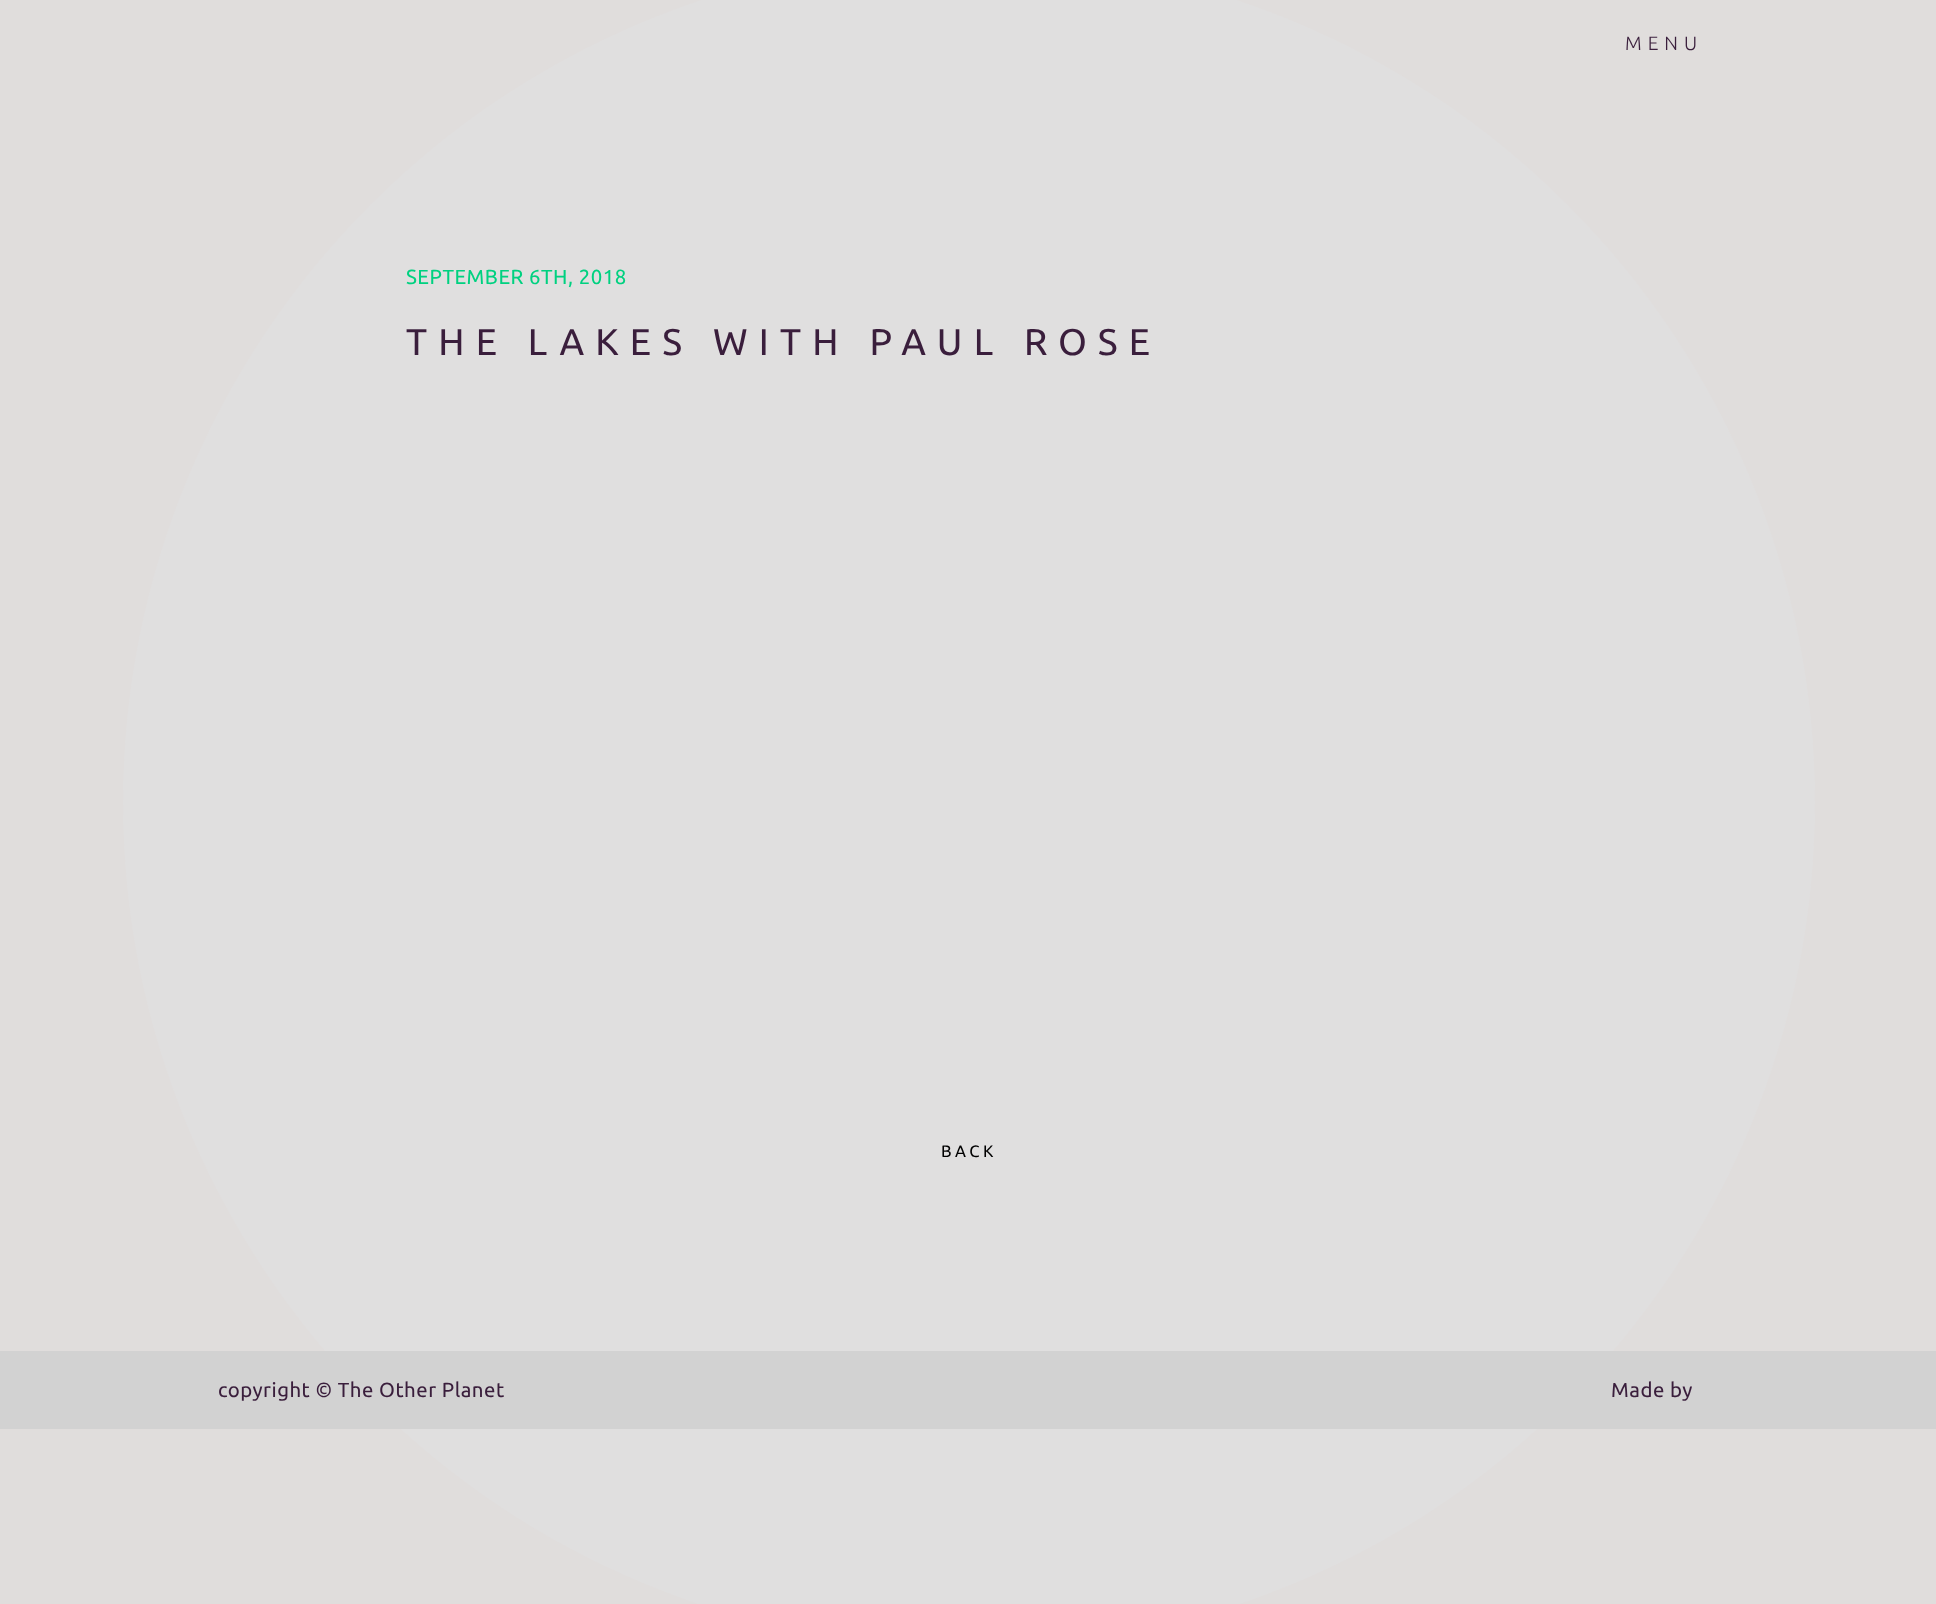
<!DOCTYPE html>
<meta charset="utf-8">
<style>body { margin: 0 } canvas { display: block }</style>
<canvas id="canvas" width="1936" height="1604"></canvas>
<script>
window.onload = function () {
	const canvas = document.getElementById("canvas");
	const ctx = canvas.getContext("2d");
	ctx.miterLimit = 4;
	ctx.fontKerning = "normal";
	function txt(s, x, y) {
		ctx.fillText(s, x, y);
	}
	function fill(x, y, w, h) {
		ctx.fillRect(x, y, w, h);
	}

	ctx.fillStyle = "#E0DDDC";
	fill(0, 0, 1936, 1604);
	ctx.fillStyle = "#E0DFDF";
	ctx.beginPath();
	ctx.arc(969, 802.5, 846, 0, Math.PI * 2);
	ctx.fill();
	ctx.fillStyle = "#D2D2D2";
	fill(0, 1351, 1936, 78);
	ctx.letterSpacing = "6px";
	ctx.font = "300 19.25px Ubuntu";
	ctx.fillStyle = "#3A1E3C";
	txt("MENU", 1625, 50);
	ctx.letterSpacing = "0.5px";
	ctx.font = "20.4px Ubuntu";
	ctx.fillStyle = "#00D180";
	txt("SEPTEMBER 6TH, 2018", 406, 284);
	ctx.letterSpacing = "11.2px";
	ctx.font = "37.2px Ubuntu";
	ctx.fillStyle = "#3A1E3C";
	txt("THE LAKES WITH PAUL ROSE", 406, 355);
	ctx.letterSpacing = "3.5px";
	ctx.font = "16.5px Ubuntu";
	ctx.fillStyle = "#000000";
	txt("BACK", 941, 1157);
	ctx.letterSpacing = "0.5px";
	ctx.font = "20.4px Ubuntu";
	ctx.fillStyle = "#3A1E3C";
	txt("copyright © The Other Planet", 218, 1397);
	txt("Made by", 1611, 1397);
};
</script>
